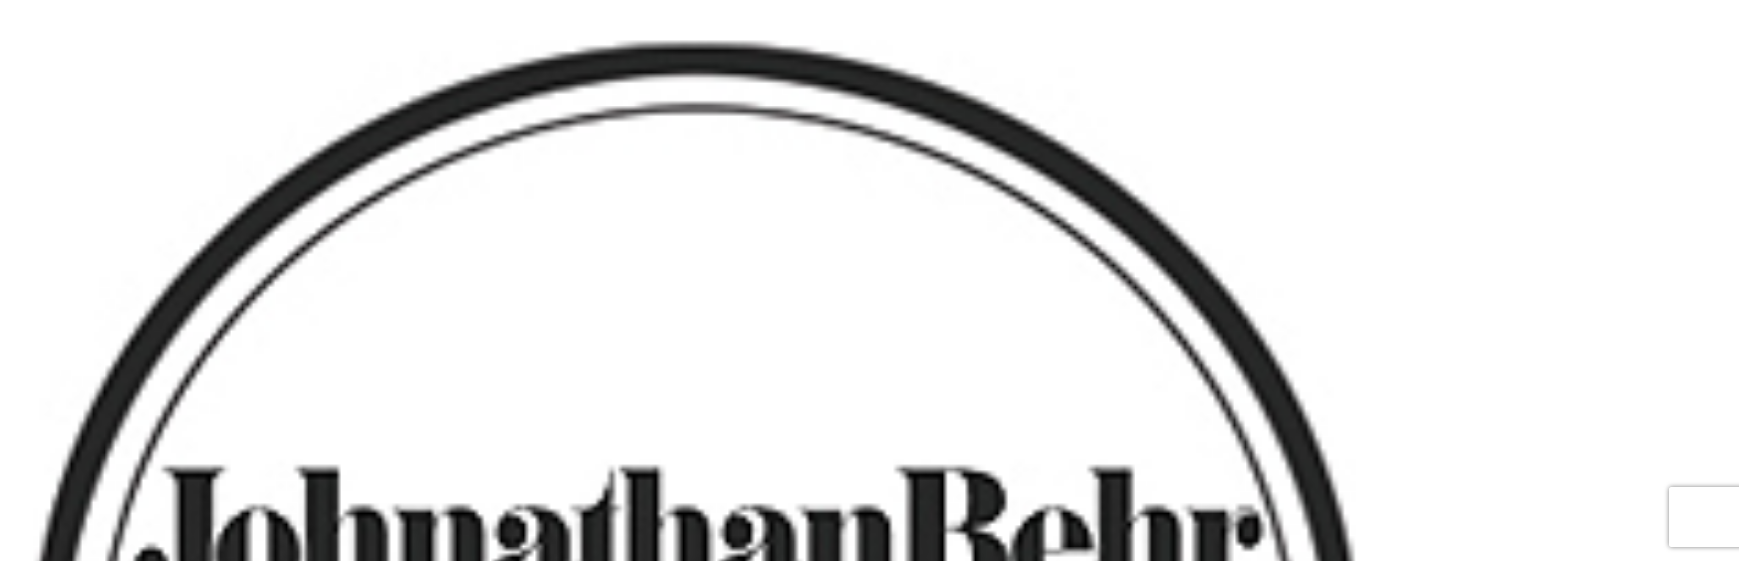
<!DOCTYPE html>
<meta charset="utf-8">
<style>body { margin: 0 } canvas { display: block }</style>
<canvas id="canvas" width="1739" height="561"></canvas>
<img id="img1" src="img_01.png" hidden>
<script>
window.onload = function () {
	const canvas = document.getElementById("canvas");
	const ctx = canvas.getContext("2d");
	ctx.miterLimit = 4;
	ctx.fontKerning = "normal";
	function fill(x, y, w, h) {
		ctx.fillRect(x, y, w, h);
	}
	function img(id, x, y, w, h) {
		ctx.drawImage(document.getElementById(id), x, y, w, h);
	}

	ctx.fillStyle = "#FFFFFF";
	fill(0, 0, 1739, 561);
	img("img1", 33, 40, 1323, 521);
	ctx.save();
	ctx.beginPath();
	ctx.moveTo(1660, 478);
	ctx.lineTo(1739, 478);
	ctx.lineTo(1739, 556);
	ctx.lineTo(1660, 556);
	ctx.closePath();
	ctx.moveTo(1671, 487);
	ctx.lineTo(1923, 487);
	ctx.bezierCurveTo(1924, 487, 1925, 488, 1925, 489);
	ctx.lineTo(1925, 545);
	ctx.bezierCurveTo(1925, 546, 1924, 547, 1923, 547);
	ctx.lineTo(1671, 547);
	ctx.bezierCurveTo(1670, 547, 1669, 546, 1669, 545);
	ctx.lineTo(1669, 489);
	ctx.bezierCurveTo(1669, 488, 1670, 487, 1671, 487);
	ctx.closePath();
	ctx.clip("evenodd");
	ctx.fillStyle = "#808080";
	ctx.filter = "blur(2.5px)";
	ctx.beginPath();
	ctx.roundRect(1669, 487, 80, 60, 2);
	ctx.fill();
	ctx.filter = "none";
	ctx.restore();
};
</script>
